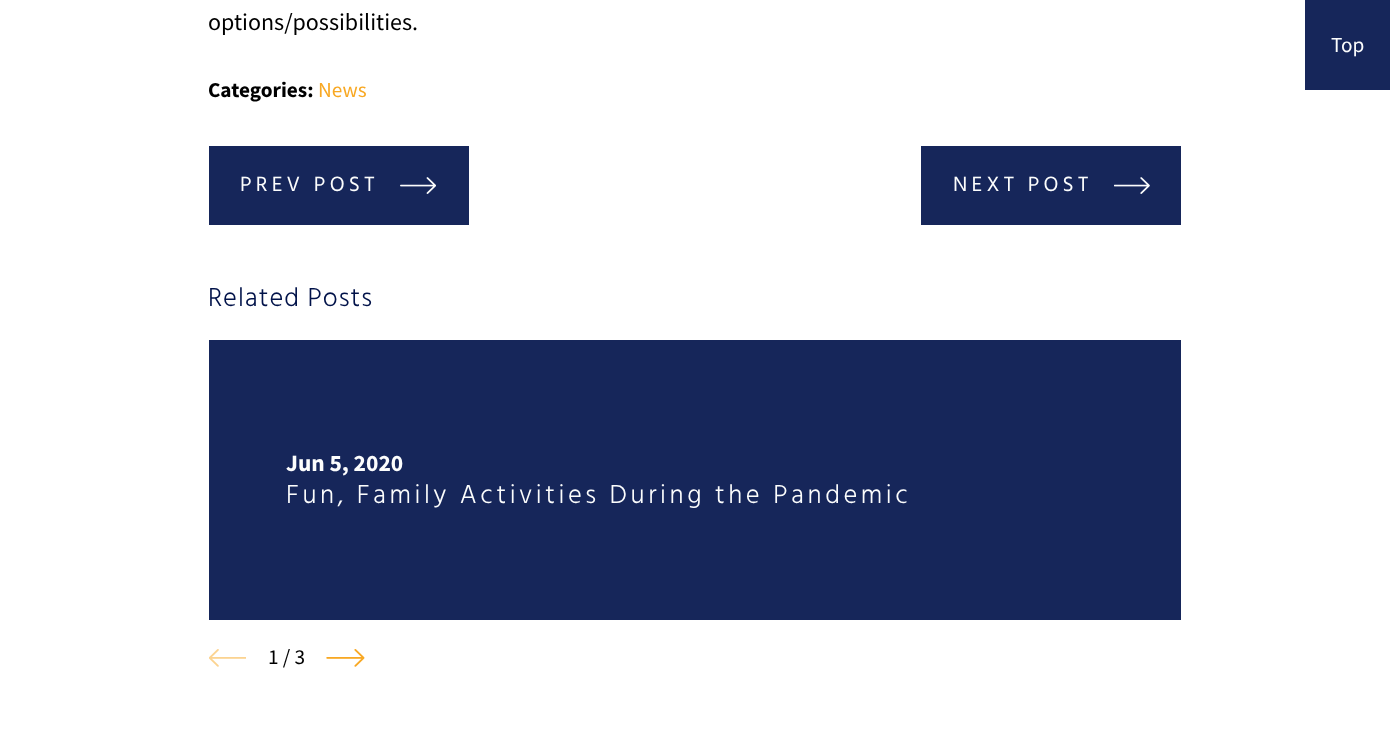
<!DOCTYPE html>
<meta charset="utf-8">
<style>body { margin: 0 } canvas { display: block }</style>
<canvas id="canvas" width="1390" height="756"></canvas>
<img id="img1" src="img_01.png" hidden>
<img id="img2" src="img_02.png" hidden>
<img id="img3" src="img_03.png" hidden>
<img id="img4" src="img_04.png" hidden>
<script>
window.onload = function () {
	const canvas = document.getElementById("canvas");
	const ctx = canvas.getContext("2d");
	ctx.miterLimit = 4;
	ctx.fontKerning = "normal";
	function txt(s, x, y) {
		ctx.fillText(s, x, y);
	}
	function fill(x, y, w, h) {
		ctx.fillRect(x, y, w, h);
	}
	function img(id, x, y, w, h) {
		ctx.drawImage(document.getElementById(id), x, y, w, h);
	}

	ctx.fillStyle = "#FFFFFF";
	fill(0, 0, 1390, 756);
	ctx.fillStyle = "#16265A";
	fill(209, 146, 260, 79);
	img("img1", 400, 177, 36, 17);
	fill(921, 146, 260, 79);
	img("img2", 1114, 177, 36, 17);
	fill(209, 340, 972, 280);
	img("img3", 209, 649, 37, 18);
	img("img4", 326, 649, 39, 18);
	fill(1305, 0, 85, 90);
	ctx.font = "24px Source Sans Pro";
	ctx.fillStyle = "#000000";
	txt("options/possibilities.", 208, 30);
	ctx.font = "bold 21.25px Source Sans Pro";
	txt("Categories:", 208, 97);
	ctx.font = "21.25px Source Sans Pro";
	ctx.fillStyle = "#F8A823";
	txt("News", 318, 97);
	ctx.letterSpacing = "4.25px";
	ctx.font = "21.25px Hind";
	ctx.fillStyle = "#FCFDFD";
	txt("PREV POST", 240, 191);
	txt("NEXT POST", 953, 191);
	ctx.letterSpacing = "1px";
	ctx.font = "300 26.6px Hind";
	ctx.fillStyle = "#011249";
	txt("Related Posts", 208, 306);
	ctx.letterSpacing = "0px";
	ctx.font = "bold 23.5px Source Sans Pro";
	ctx.fillStyle = "#FCFDFD";
	txt("Jun 5, 2020", 286, 471);
	ctx.letterSpacing = "3.55px";
	ctx.font = "300 26.6px Hind";
	txt("Fun, Family Activities During the Pandemic", 286, 503);
	ctx.letterSpacing = "0px";
	ctx.font = "21.25px Source Sans Pro";
	ctx.fillStyle = "#000000";
	txt("1 / 3", 268, 664);
	ctx.fillStyle = "#FCFDFD";
	txt("Top", 1331, 52);
};
</script>
